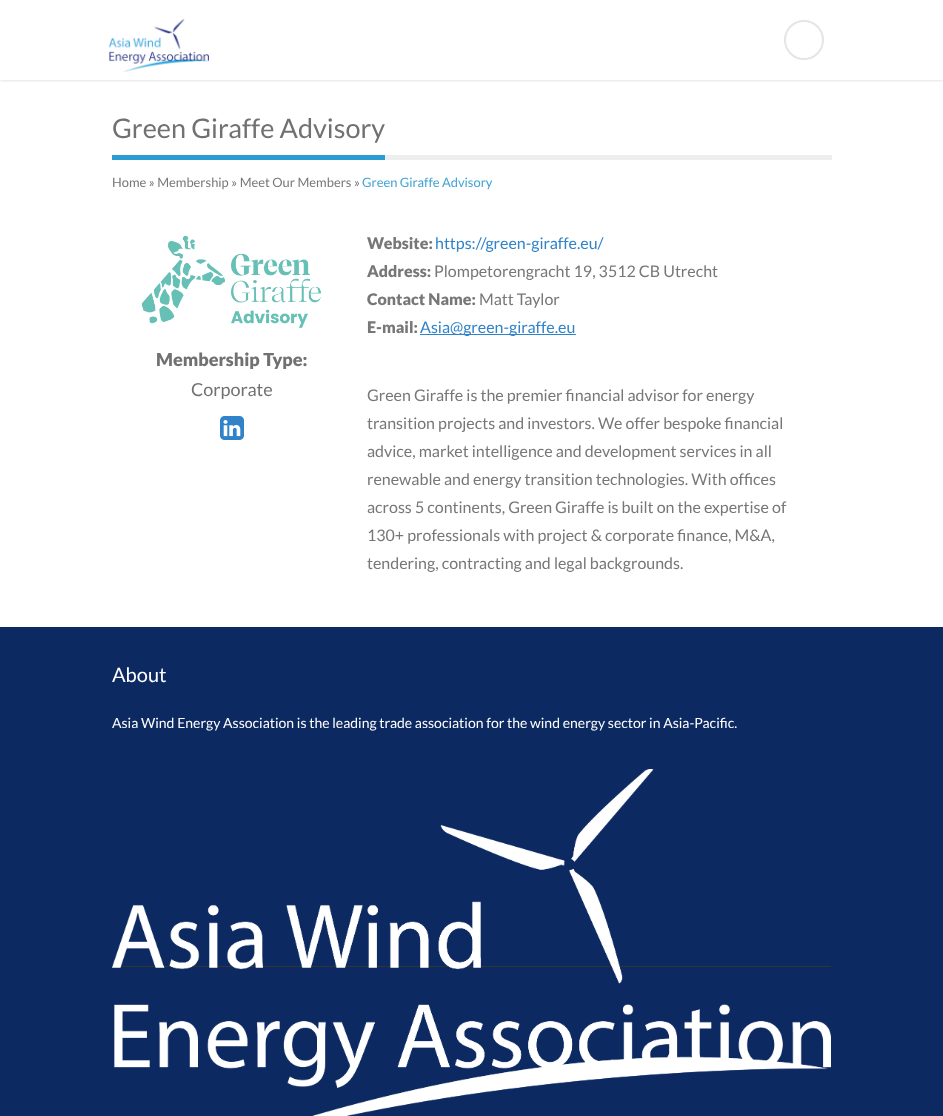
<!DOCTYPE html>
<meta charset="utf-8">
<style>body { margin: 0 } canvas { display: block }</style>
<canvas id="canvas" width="943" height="1116"></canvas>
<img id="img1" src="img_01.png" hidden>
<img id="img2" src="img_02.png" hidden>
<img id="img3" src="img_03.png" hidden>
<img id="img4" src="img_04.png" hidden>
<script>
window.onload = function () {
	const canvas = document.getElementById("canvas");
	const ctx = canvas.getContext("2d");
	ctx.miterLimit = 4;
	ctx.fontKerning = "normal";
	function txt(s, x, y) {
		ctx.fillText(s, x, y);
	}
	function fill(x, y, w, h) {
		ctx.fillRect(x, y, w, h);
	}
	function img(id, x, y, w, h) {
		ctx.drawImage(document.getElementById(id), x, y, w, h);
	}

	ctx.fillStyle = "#FFFFFF";
	fill(0, 0, 943, 1116);
	ctx.save();
	ctx.beginPath();
	ctx.rect(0, 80, 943, 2);
	ctx.clip();
	ctx.fillStyle = "rgba(0, 0, 0, 0.11)";
	ctx.filter = "blur(1.5px)";
	ctx.beginPath();
	ctx.rect(0, 1, 943, 80);
	ctx.fill();
	ctx.filter = "none";
	ctx.restore();
	img("img1", 109, 18, 100, 55);
	ctx.beginPath();
	ctx.arc(804, 40, 19, 0, Math.PI * 2);
	ctx.strokeStyle = "#E5E5E5";
	ctx.lineWidth = 2;
	ctx.stroke();
	ctx.fillStyle = "#EEEEEE";
	fill(385, 155, 447, 5);
	ctx.fillStyle = "#2D9CD3";
	fill(112, 155, 273, 5);
	img("img2", 141, 235, 180, 93);
	img("img3", 220, 416, 24, 24);
	ctx.fillStyle = "#3083C9";
	fill(420, 334, 156, 1);
	ctx.fillStyle = "#0C2961";
	fill(0, 627, 943, 489);
	ctx.fillStyle = "#333333";
	fill(112, 966, 719, 1);
	img("img4", 112, 769, 719, 347);
	ctx.font = "27px Lato";
	ctx.fillStyle = "#727070";
	txt("Green Giraffe Advisory", 112, 138);
	ctx.font = "12.9px Lato";
	ctx.fillStyle = "#777777";
	txt("Home » Membership » Meet Our Members »", 112, 187);
	ctx.fillStyle = "#41A3D3";
	txt("Green Giraffe Advisory", 362, 187);
	ctx.font = "900 18px Lato";
	ctx.fillStyle = "#727070";
	txt("Membership Type:", 156, 366);
	ctx.font = "18px Lato";
	txt("Corporate", 191, 396);
	ctx.font = "900 16px Lato";
	ctx.fillStyle = "#777777";
	txt("Website:", 367, 249);
	ctx.font = "16px Lato";
	ctx.fillStyle = "#3083C9";
	txt("https://green-giraffe.eu/", 435, 249);
	ctx.font = "900 16px Lato";
	ctx.fillStyle = "#777777";
	txt("Address:", 367, 277);
	ctx.font = "16px Lato";
	txt("Plompetorengracht 19, 3512 CB Utrecht", 434, 277);
	ctx.font = "900 16px Lato";
	txt("Contact Name:", 367, 305);
	ctx.font = "16px Lato";
	txt("Matt Taylor", 479, 305);
	ctx.font = "900 16px Lato";
	txt("E-mail:", 367, 333);
	ctx.font = "16px Lato";
	ctx.fillStyle = "#3083C9";
	txt("Asia@green-giraffe.eu", 420, 333);
	ctx.fillStyle = "#777777";
	txt("Green Giraffe is the premier financial advisor for energy", 367, 401);
	txt("transition projects and investors. We offer bespoke financial", 367, 429);
	txt("advice, market intelligence and development services in all", 367, 457);
	txt("renewable and energy transition technologies. With offices", 367, 485);
	txt("across 5 continents, Green Giraffe is built on the expertise of", 367, 513);
	txt("130+ professionals with project & corporate finance, M&A,", 367, 541);
	txt("tendering, contracting and legal backgrounds.", 367, 569);
	ctx.font = "20px Lato";
	ctx.fillStyle = "#FFFFFF";
	txt("About", 112, 682);
	ctx.font = "14px Lato";
	txt("Asia Wind Energy Association is the leading trade association for the wind energy sector in Asia-Pacific.", 112, 728);
};
</script>
